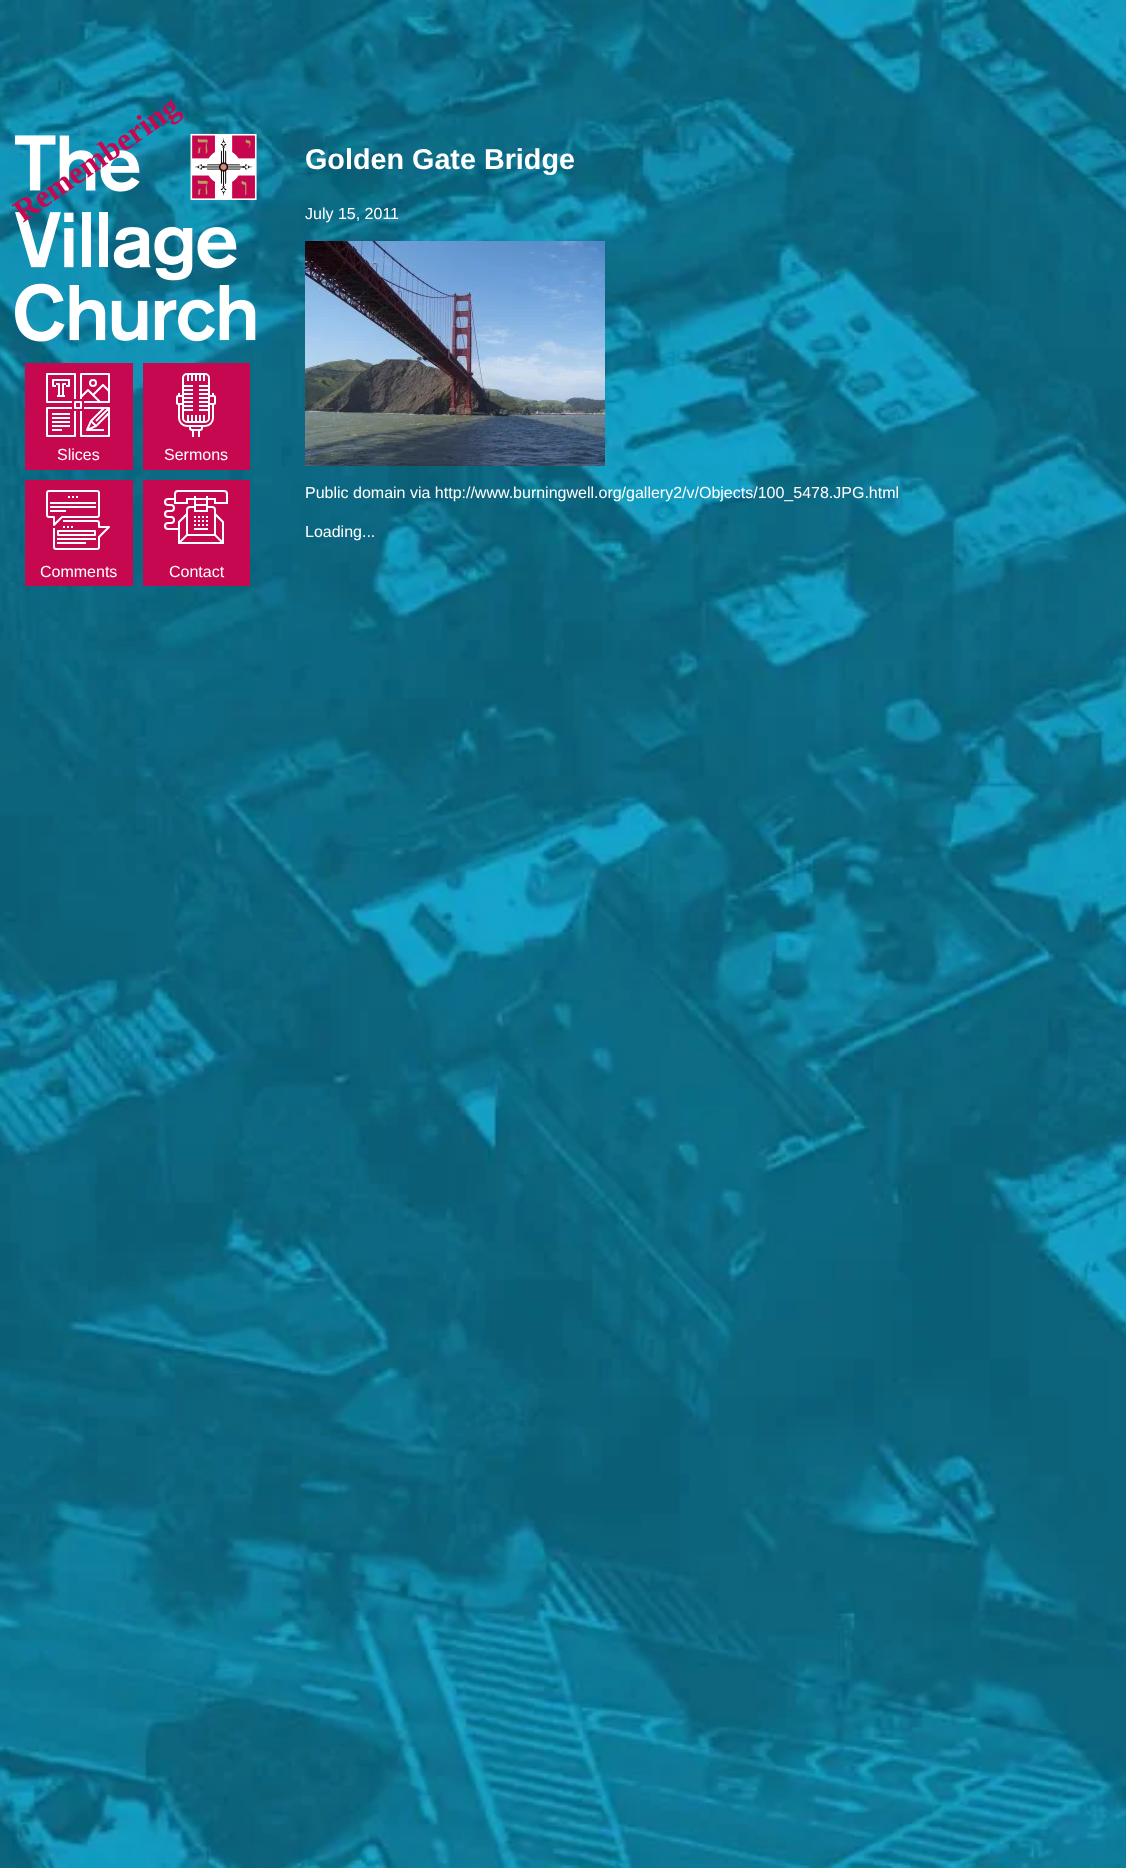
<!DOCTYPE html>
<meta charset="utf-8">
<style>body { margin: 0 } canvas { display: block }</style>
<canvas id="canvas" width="1126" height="1868"></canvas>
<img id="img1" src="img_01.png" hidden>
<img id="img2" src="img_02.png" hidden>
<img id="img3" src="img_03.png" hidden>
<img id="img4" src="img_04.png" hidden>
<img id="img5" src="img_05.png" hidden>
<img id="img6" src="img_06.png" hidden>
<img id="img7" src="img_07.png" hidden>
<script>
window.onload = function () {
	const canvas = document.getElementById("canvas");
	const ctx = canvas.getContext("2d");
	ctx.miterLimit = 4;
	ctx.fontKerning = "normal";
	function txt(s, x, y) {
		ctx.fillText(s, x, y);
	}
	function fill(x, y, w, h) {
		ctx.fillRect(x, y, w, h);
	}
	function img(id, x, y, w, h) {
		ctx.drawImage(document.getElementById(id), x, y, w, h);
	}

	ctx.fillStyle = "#FFFFFF";
	fill(0, 0, 1126, 1868);
	img("img1", 0, 0, 1126, 1868);
	img("img2", 15, 133, 242, 209);
	ctx.fillStyle = "#C60850";
	fill(25, 363, 108, 107);
	img("img3", 46, 373, 64, 64);
	fill(143, 363, 107, 107);
	img("img4", 176, 373, 40, 64);
	fill(25, 480, 108, 106);
	img("img5", 46, 490, 64, 60);
	fill(143, 480, 107, 106);
	img("img6", 164, 490, 64, 54);
	img("img7", 305, 241, 300, 225);
	ctx.font = "bold 32px Liberation Serif";
	ctx.save();
	ctx.translate(23, 223);
	ctx.rotate(-35 * Math.PI / 180);
	ctx.fillText("Remembering", 0, 0);
	ctx.restore();
	ctx.font = "16px Liberation Sans";
	ctx.fillStyle = "#FFFFFF";
	txt("Slices", 57, 460);
	txt("Sermons", 164, 460);
	txt("Comments", 40, 577);
	txt("Contact", 169, 577);
	ctx.font = "bold 28.75px Liberation Sans";
	txt("Golden Gate Bridge", 305, 169);
	ctx.font = "16px Liberation Sans";
	txt("July 15, 2011", 305, 219);
	txt("Public domain via http://www.burningwell.org/gallery2/v/Objects/100_5478.JPG.html", 305, 498);
	txt("Loading...", 305, 537);
};
</script>
